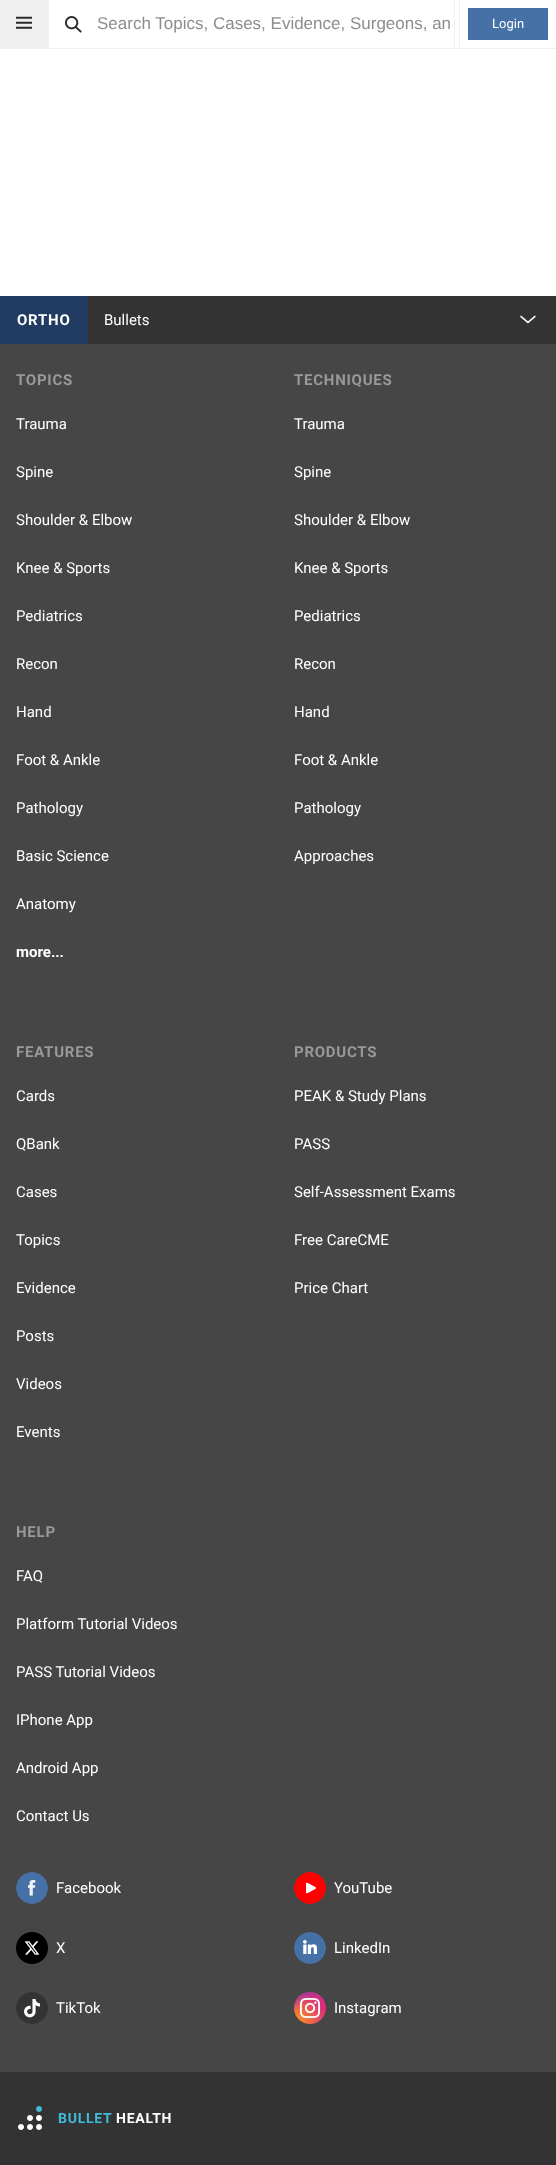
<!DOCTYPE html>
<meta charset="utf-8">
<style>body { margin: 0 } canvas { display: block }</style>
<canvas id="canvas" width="556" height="2165"></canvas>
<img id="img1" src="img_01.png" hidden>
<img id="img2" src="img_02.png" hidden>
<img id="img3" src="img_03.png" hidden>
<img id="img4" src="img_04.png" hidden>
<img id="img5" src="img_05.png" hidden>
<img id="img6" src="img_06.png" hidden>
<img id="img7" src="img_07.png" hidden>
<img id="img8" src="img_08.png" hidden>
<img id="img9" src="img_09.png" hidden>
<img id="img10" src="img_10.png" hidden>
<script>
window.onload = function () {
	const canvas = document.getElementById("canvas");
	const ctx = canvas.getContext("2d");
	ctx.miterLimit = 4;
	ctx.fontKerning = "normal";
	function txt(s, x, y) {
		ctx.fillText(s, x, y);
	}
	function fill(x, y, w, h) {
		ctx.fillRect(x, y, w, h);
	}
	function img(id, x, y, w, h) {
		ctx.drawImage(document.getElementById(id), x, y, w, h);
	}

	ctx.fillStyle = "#FFFFFF";
	fill(0, 0, 556, 2165);
	ctx.fillStyle = "#EFEFF4";
	fill(0, 48, 556, 1);
	ctx.fillStyle = "#EFEFEF";
	fill(0, 0, 48, 48);
	img("img1", 16, 16, 16, 13);
	ctx.fillStyle = "#EFEFF4";
	fill(48, 1, 1, 47);
	img("img2", 65, 16, 17, 17);
	fill(454, 0, 1, 48);
	fill(459, 0, 1, 48);
	ctx.fillStyle = "#4571A7";
	fill(468, 8, 80, 32);
	ctx.fillStyle = "#464646";
	fill(0, 344, 556, 1728);
	ctx.fillStyle = "#333333";
	fill(88, 296, 468, 48);
	ctx.fillStyle = "#223B63";
	fill(0, 296, 88, 48);
	img("img3", 520, 315, 16, 9);
	img("img4", 16, 1872, 32, 32);
	img("img5", 16, 1932, 32, 32);
	img("img6", 16, 1992, 32, 32);
	img("img7", 294, 1872, 32, 32);
	img("img8", 294, 1932, 32, 32);
	img("img9", 294, 1992, 32, 32);
	ctx.fillStyle = "#333333";
	fill(0, 2072, 556, 93);
	img("img10", 18, 2106, 24, 24);
	ctx.font = "17px Liberation Sans";
	ctx.fillStyle = "#8D8D8D";
	txt("Search Topics, Cases, Evidence, Surgeons, an", 97, 29);
	ctx.font = "13px Roboto";
	ctx.fillStyle = "#FFFFFF";
	txt("Login", 492, 28);
	ctx.letterSpacing = "0.75px";
	ctx.font = "bold 15px Roboto";
	txt("ORTHO", 17, 325);
	ctx.letterSpacing = "0px";
	ctx.font = "15px Roboto";
	txt("Bullets", 104, 325);
	ctx.letterSpacing = "0.75px";
	ctx.font = "bold 15px Roboto";
	ctx.fillStyle = "#999999";
	txt("TOPICS", 16, 385);
	ctx.letterSpacing = "0px";
	ctx.font = "15px Roboto";
	ctx.fillStyle = "#FFFFFF";
	txt("Trauma", 16, 429);
	txt("Spine", 16, 477);
	txt("Shoulder & Elbow", 16, 525);
	txt("Knee & Sports", 16, 573);
	txt("Pediatrics", 16, 621);
	txt("Recon", 16, 669);
	txt("Hand", 16, 717);
	txt("Foot & Ankle", 16, 765);
	txt("Pathology", 16, 813);
	txt("Basic Science", 16, 861);
	txt("Anatomy", 16, 909);
	ctx.font = "bold 15px Roboto";
	txt("more...", 16, 957);
	ctx.letterSpacing = "0.75px";
	ctx.fillStyle = "#999999";
	txt("TECHNIQUES", 294, 385);
	ctx.letterSpacing = "0px";
	ctx.font = "15px Roboto";
	ctx.fillStyle = "#FFFFFF";
	txt("Trauma", 294, 429);
	txt("Spine", 294, 477);
	txt("Shoulder & Elbow", 294, 525);
	txt("Knee & Sports", 294, 573);
	txt("Pediatrics", 294, 621);
	txt("Recon", 294, 669);
	txt("Hand", 294, 717);
	txt("Foot & Ankle", 294, 765);
	txt("Pathology", 294, 813);
	txt("Approaches", 294, 861);
	ctx.letterSpacing = "0.75px";
	ctx.font = "bold 15px Roboto";
	ctx.fillStyle = "#999999";
	txt("FEATURES", 16, 1057);
	ctx.letterSpacing = "0px";
	ctx.font = "15px Roboto";
	ctx.fillStyle = "#FFFFFF";
	txt("Cards", 16, 1101);
	txt("QBank", 16, 1149);
	txt("Cases", 16, 1197);
	txt("Topics", 16, 1245);
	txt("Evidence", 16, 1293);
	txt("Posts", 16, 1341);
	txt("Videos", 16, 1389);
	txt("Events", 16, 1437);
	ctx.letterSpacing = "0.75px";
	ctx.font = "bold 15px Roboto";
	ctx.fillStyle = "#999999";
	txt("PRODUCTS", 294, 1057);
	ctx.letterSpacing = "0px";
	ctx.font = "15px Roboto";
	ctx.fillStyle = "#FFFFFF";
	txt("PEAK & Study Plans", 294, 1101);
	txt("PASS", 294, 1149);
	txt("Self-Assessment Exams", 294, 1197);
	txt("Free CareCME", 294, 1245);
	txt("Price Chart", 294, 1293);
	ctx.letterSpacing = "0.75px";
	ctx.font = "bold 15px Roboto";
	ctx.fillStyle = "#999999";
	txt("HELP", 16, 1537);
	ctx.letterSpacing = "0px";
	ctx.font = "15px Roboto";
	ctx.fillStyle = "#FFFFFF";
	txt("FAQ", 16, 1581);
	txt("Platform Tutorial Videos", 16, 1629);
	txt("PASS Tutorial Videos", 16, 1677);
	txt("IPhone App", 16, 1725);
	txt("Android App", 16, 1773);
	txt("Contact Us", 16, 1821);
	txt("Facebook", 56, 1893);
	txt("X", 56, 1953);
	txt("TikTok", 56, 2013);
	txt("YouTube", 334, 1893);
	txt("LinkedIn", 334, 1953);
	txt("Instagram", 334, 2013);
	ctx.letterSpacing = "0.75px";
	ctx.font = "bold 14px Roboto";
	ctx.fillStyle = "#3FBBD7";
	txt("BULLET", 58, 2123);
	ctx.fillStyle = "#FFFFFF";
	txt("HEALTH", 116, 2123);
};
</script>
